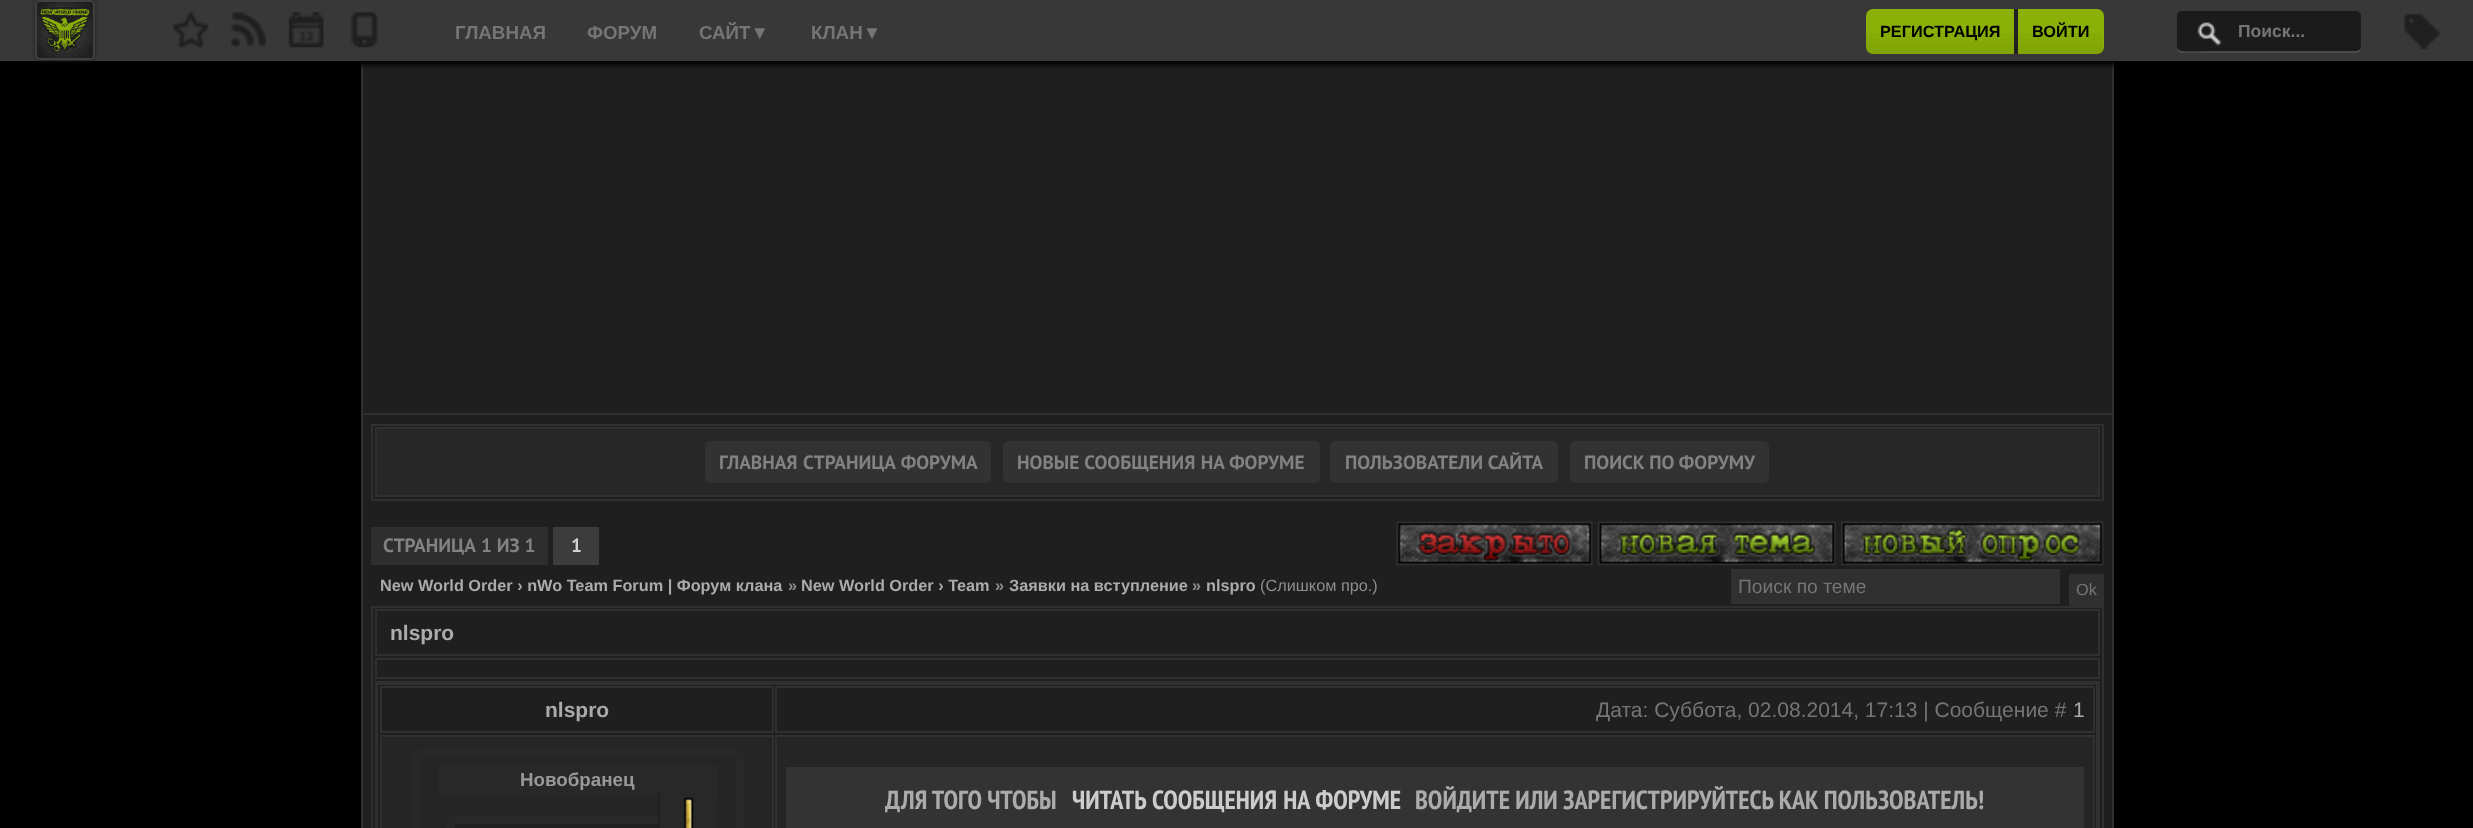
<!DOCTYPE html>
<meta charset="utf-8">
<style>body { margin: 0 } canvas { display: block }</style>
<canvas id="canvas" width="2473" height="828"></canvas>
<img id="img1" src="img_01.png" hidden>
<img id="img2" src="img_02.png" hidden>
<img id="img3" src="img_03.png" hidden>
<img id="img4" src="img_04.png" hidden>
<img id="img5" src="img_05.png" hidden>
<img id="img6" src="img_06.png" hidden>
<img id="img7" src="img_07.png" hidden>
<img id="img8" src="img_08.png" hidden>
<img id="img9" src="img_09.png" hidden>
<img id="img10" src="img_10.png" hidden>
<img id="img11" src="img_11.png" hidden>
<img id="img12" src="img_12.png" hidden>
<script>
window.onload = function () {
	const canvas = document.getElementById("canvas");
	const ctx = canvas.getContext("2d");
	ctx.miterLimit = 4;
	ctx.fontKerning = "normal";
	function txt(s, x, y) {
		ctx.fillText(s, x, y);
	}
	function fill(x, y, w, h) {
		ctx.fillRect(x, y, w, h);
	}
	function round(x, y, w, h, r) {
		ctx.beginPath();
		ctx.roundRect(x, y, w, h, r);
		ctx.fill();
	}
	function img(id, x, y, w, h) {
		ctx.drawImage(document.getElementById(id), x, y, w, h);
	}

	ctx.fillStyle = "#000000";
	fill(0, 0, 2473, 828);
	ctx.fillStyle = "#1F1F1F";
	fill(363, 63, 1749, 765);
	ctx.strokeStyle = "#303030";
	ctx.lineWidth = 2;
	ctx.strokeRect(362, 1, 1751, 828);
	ctx.strokeRect(363, 3, 1748, 59);
	ctx.fillStyle = "#000000";
	ctx.filter = "blur(2.5px)";
	ctx.beginPath();
	ctx.rect(0, 4, 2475, 61);
	ctx.fill();
	ctx.filter = "none";
	ctx.fillStyle = "#383838";
	fill(0, 0, 2473, 61);
	ctx.fillStyle = "#202020";
	ctx.filter = "blur(2px)";
	ctx.beginPath();
	ctx.roundRect(35, 0, 60, 60, 5);
	ctx.fill();
	ctx.filter = "none";
	ctx.beginPath();
	ctx.roundRect(36, 1, 58, 58, 4);
	ctx.strokeStyle = "#404040";
	ctx.stroke();
	img("img1", 37, 2, 56, 56);
	img("img2", 173, 12, 36, 36);
	img("img3", 231, 12, 35, 35);
	img("img4", 288, 12, 36, 36);
	img("img5", 350, 12, 28, 36);
	ctx.fillStyle = "#8BB007";
	round(1866, 9, 238, 45, 7);
	img("img6", 1866, 33, 237, 21);
	ctx.fillStyle = "#202020";
	fill(2014, 9, 4, 45);
	ctx.fillStyle = "#4C4C4C";
	ctx.beginPath();
	ctx.moveTo(2177, 46);
	ctx.bezierCurveTo(2177, 49, 2178, 53, 2182, 53);
	ctx.lineTo(2356, 53);
	ctx.bezierCurveTo(2363, 53, 2361, 42, 2361, 38);
	ctx.lineTo(2361, 15);
	ctx.lineTo(2361, 41);
	ctx.bezierCurveTo(2361, 45, 2361, 51, 2356, 51);
	ctx.lineTo(2211, 51);
	ctx.bezierCurveTo(2200, 51, 2177, 55, 2177, 46);
	ctx.closePath();
	ctx.fill();
	ctx.fillStyle = "#1B1B1B";
	round(2177, 11, 184, 40, 5);
	img("img7", 2197, 22, 25, 24);
	img("img8", 2404, 14, 36, 35);
	ctx.fillStyle = "#303030";
	fill(362, 413, 1750, 2);
	ctx.strokeStyle = "#303030";
	ctx.strokeRect(372, 425, 1731, 75);
	ctx.fillStyle = "#272727";
	ctx.beginPath();
	ctx.rect(376, 428, 1723, 68);
	ctx.fill();
	ctx.stroke();
	ctx.fillStyle = "#323232";
	round(705, 441, 286, 42, 5);
	round(1003, 441, 317, 42, 5);
	round(1330, 441, 228, 42, 5);
	round(1570, 441, 199, 42, 5);
	ctx.fillStyle = "#2E2E2E";
	fill(371, 527, 177, 38);
	ctx.fillStyle = "#3C3C3C";
	fill(553, 527, 46, 38);
	img("img9", 1396, 521, 197, 45);
	img("img10", 1597, 521, 239, 45);
	img("img11", 1841, 521, 263, 45);
	ctx.fillStyle = "#303030";
	fill(1731, 569, 329, 35);
	fill(2069, 574, 35, 32);
	ctx.strokeRect(372, 607, 1731, 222);
	ctx.strokeRect(376, 610, 1723, 45);
	ctx.strokeRect(376, 659, 1723, 19);
	ctx.strokeRect(376, 682, 1723, 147);
	ctx.strokeRect(377, 684, 1720, 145);
	ctx.strokeRect(381, 687, 392, 45);
	ctx.strokeRect(776, 687, 1318, 45);
	ctx.fillStyle = "#252525";
	ctx.beginPath();
	ctx.rect(381, 736, 392, 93);
	ctx.fill();
	ctx.stroke();
	ctx.beginPath();
	ctx.roundRect(415.5, 753.5, 324, 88, 4.5);
	ctx.strokeStyle = "#282828";
	ctx.lineWidth = 9;
	ctx.stroke();
	ctx.fillStyle = "#282828";
	fill(438, 765, 280, 31);
	ctx.beginPath();
	ctx.roundRect(450.5, 820.5, 254, 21, 4.5);
	ctx.stroke();
	img("img12", 658, 791, 59, 37);
	ctx.fillStyle = "#202020";
	fill(455, 824, 203, 4);
	ctx.fillStyle = "#252525";
	ctx.beginPath();
	ctx.rect(776, 736, 1318, 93);
	ctx.fill();
	ctx.strokeStyle = "#303030";
	ctx.lineWidth = 2;
	ctx.stroke();
	ctx.fillStyle = "#333333";
	fill(786, 767, 1298, 61);
	ctx.font = "bold 18.75px Liberation Sans";
	ctx.fillStyle = "#757575";
	txt("ГЛАВНАЯ", 455, 39);
	txt("ФОРУМ", 587, 39);
	txt("САЙТ▼", 699, 39);
	txt("КЛАН▼", 811, 39);
	ctx.font = "bold 16.3px Liberation Sans";
	ctx.fillStyle = "#000000";
	txt("РЕГИСТРАЦИЯ", 1880, 37);
	txt("ВОЙТИ", 2032, 37);
	ctx.font = "bold 17.5px Liberation Sans";
	ctx.fillStyle = "#757575";
	txt("Поиск...", 2238, 37);
	ctx.wordSpacing = "1px";
	ctx.font = "bold 19.25px PT Sans";
	ctx.fillStyle = "#828282";
	txt("ГЛАВНАЯ СТРАНИЦА ФОРУМА", 719, 469);
	ctx.wordSpacing = "0.5px";
	txt("НОВЫЕ СООБЩЕНИЯ НА ФОРУМЕ", 1017, 469);
	ctx.wordSpacing = "0px";
	txt("ПОЛЬЗОВАТЕЛИ САЙТА", 1345, 469);
	txt("ПОИСК ПО ФОРУМУ", 1584, 469);
	txt("СТРАНИЦА", 383, 552);
	txt("1 ИЗ 1", 481, 552);
	ctx.fillStyle = "#D2D2D2";
	txt("1", 571, 552);
	ctx.font = "bold 16.3px Liberation Sans";
	ctx.fillStyle = "#ABABAB";
	txt("New World Order › nWo Team Forum | Форум клана", 380, 591);
	ctx.fillStyle = "#8D8D8D";
	txt("»", 788, 591);
	ctx.fillStyle = "#ABABAB";
	txt("New World Order › Team", 801, 591);
	ctx.fillStyle = "#8D8D8D";
	txt("»", 995, 591);
	ctx.fillStyle = "#ABABAB";
	txt("Заявки на вступление", 1009, 591);
	ctx.fillStyle = "#8D8D8D";
	txt("»", 1192, 591);
	ctx.fillStyle = "#ABABAB";
	txt("nlspro", 1206, 591);
	ctx.font = "16.3px Liberation Sans";
	ctx.fillStyle = "#8D8D8D";
	txt("(Слишком про.)", 1260, 591);
	ctx.font = "19.25px Liberation Sans";
	ctx.fillStyle = "#757575";
	txt("Поиск по теме", 1738, 593);
	ctx.font = "16.3px Liberation Sans";
	txt("Ok", 2076, 595);
	ctx.font = "bold 21px Liberation Sans";
	ctx.fillStyle = "#ABABAB";
	txt("nlspro", 390, 640);
	txt("nlspro", 545, 717);
	ctx.font = "21px Liberation Sans";
	ctx.fillStyle = "#757575";
	txt("Дата: Суббота, 02.08.2014, 17:13 | Сообщение #", 1596, 717);
	ctx.fillStyle = "#ABABAB";
	txt("1", 2073, 717);
	ctx.font = "bold 18.75px Liberation Sans";
	ctx.fillStyle = "#999999";
	txt("Новобранец", 520, 786);
	ctx.font = "bold 26.25px PT Sans Narrow";
	ctx.fillStyle = "#ABABAB";
	txt("ДЛЯ ТОГО ЧТОБЫ", 885, 809);
	ctx.wordSpacing = "1px";
	ctx.fillStyle = "#CCCCCC";
	txt("ЧИТАТЬ СООБЩЕНИЯ НА ФОРУМЕ", 1072, 809);
	ctx.wordSpacing = "0px";
	ctx.fillStyle = "#ABABAB";
	txt("ВОЙДИТЕ ИЛИ ЗАРЕГИСТРИРУЙТЕСЬ КАК ПОЛЬЗОВАТЕЛЬ!", 1415, 809);
};
</script>
